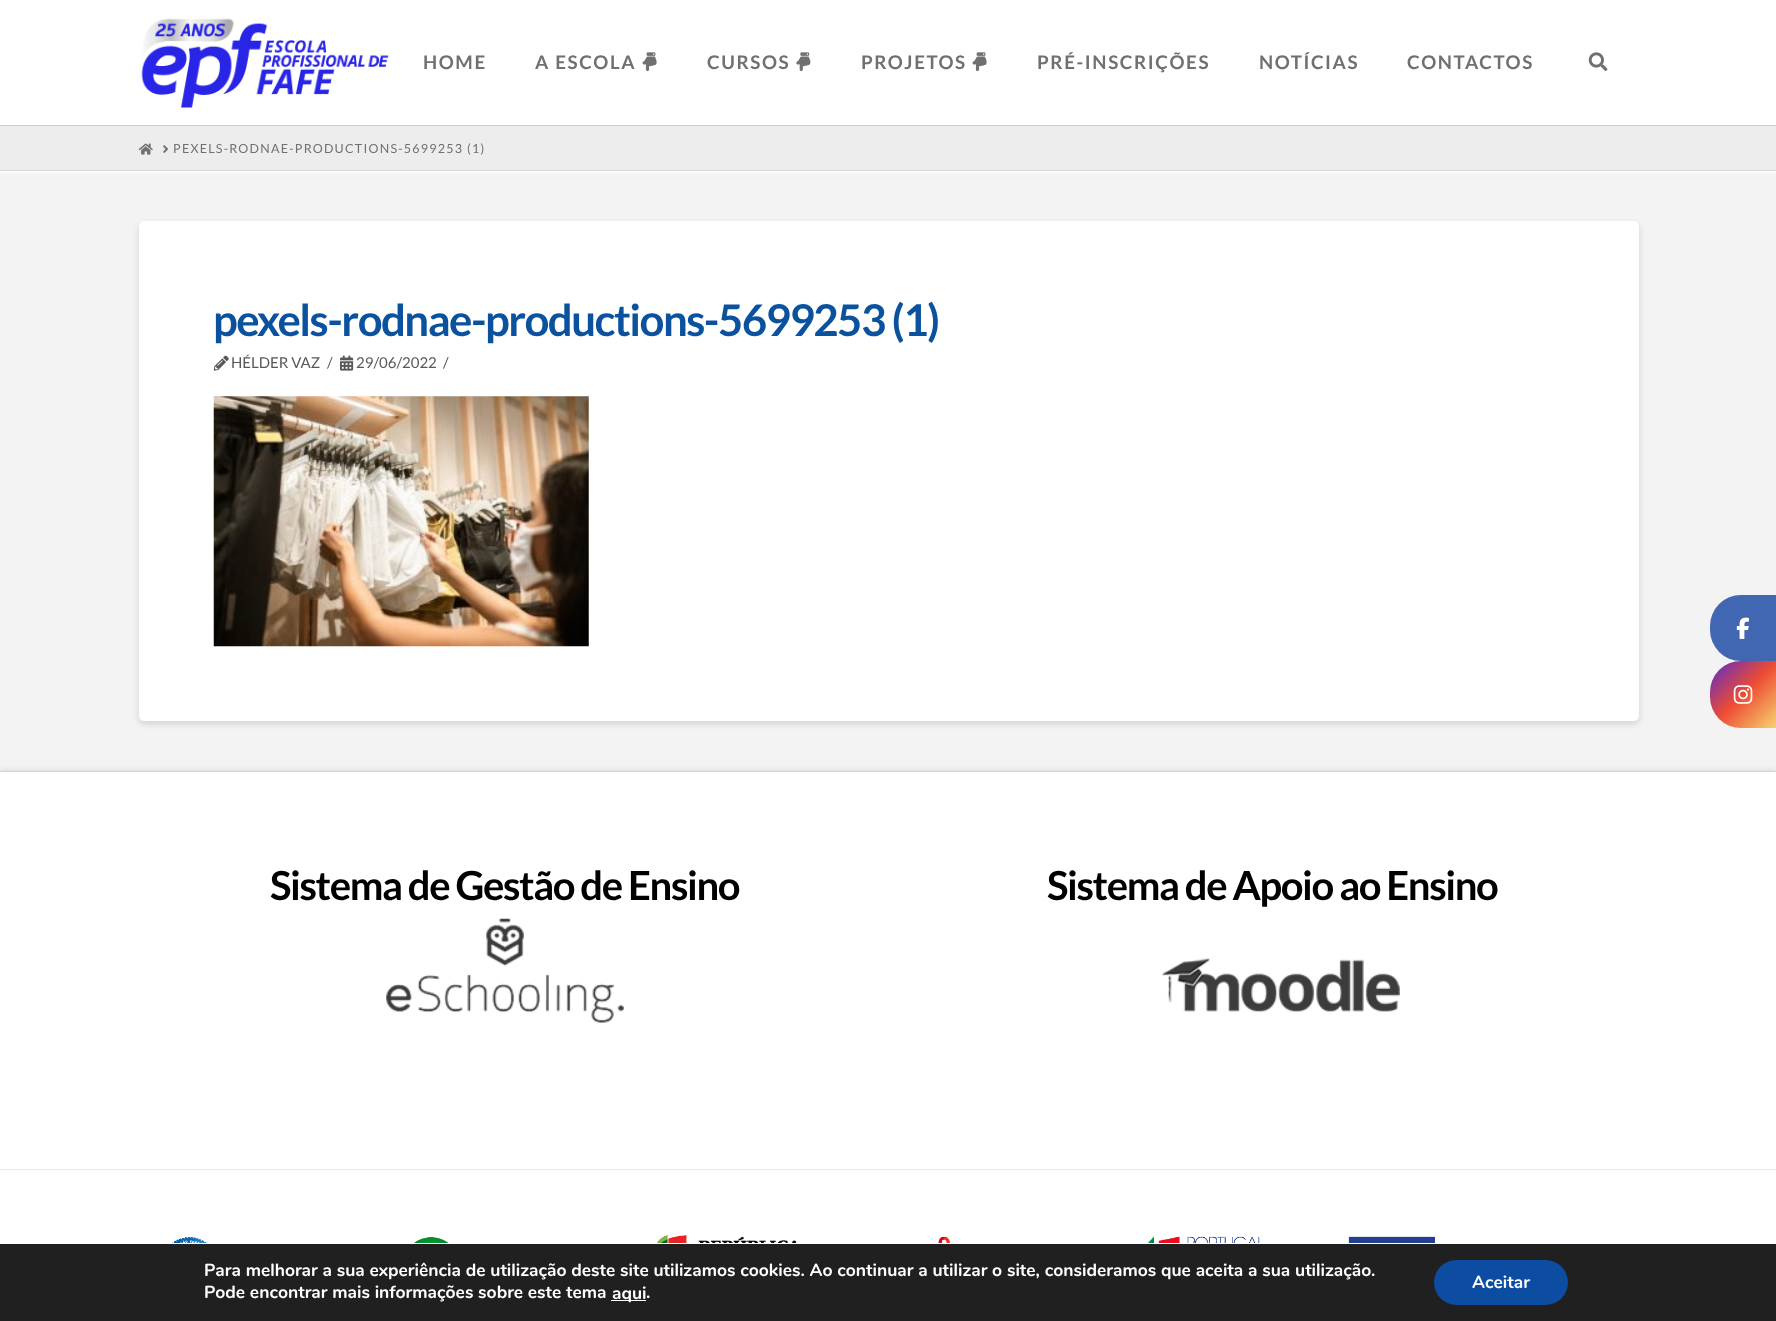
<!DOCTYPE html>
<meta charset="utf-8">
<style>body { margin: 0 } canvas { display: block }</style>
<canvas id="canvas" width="1776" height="1321"></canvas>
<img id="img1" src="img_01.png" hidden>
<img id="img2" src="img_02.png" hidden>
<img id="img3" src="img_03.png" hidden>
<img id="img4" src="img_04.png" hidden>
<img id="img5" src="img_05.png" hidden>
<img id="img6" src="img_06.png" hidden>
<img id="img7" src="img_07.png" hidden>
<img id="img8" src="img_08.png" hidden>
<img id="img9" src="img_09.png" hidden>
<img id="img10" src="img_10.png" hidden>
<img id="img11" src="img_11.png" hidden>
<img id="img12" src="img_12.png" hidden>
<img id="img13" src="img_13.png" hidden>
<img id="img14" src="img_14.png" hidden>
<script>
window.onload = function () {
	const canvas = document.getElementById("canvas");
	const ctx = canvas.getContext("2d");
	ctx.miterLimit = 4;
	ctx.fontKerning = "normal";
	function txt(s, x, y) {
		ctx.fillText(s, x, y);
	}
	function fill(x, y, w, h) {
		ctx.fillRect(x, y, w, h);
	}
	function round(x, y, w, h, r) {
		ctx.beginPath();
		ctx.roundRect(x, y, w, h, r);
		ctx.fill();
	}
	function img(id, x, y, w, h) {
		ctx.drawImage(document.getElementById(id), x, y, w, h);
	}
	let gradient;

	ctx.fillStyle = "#F3F3F3";
	fill(0, 0, 1776, 1321);
	ctx.fillStyle = "#FFFFFF";
	fill(0, 0, 1776, 125);
	ctx.fillStyle = "#CCCCCC";
	fill(0, 125, 1776, 1);
	img("img1", 141, 18, 248, 91);
	img("img2", 642, 52, 15, 20);
	img("img3", 796, 52, 15, 20);
	img("img2", 972, 52, 15, 20);
	img("img4", 1588, 52, 20, 19);
	ctx.fillStyle = "#FCFCFC";
	fill(0, 171, 1776, 2);
	ctx.fillStyle = "#EDEDED";
	fill(0, 126, 1776, 44);
	ctx.fillStyle = "#D5D5D5";
	fill(0, 170, 1776, 1);
	img("img5", 138, 143, 15, 12);
	img("img6", 163, 145, 5, 8);
	ctx.fillStyle = "rgba(0, 0, 0, 0.13)";
	ctx.filter = "blur(3px)";
	ctx.beginPath();
	ctx.roundRect(139, 224, 1500, 500, 5);
	ctx.fill();
	ctx.filter = "none";
	ctx.fillStyle = "#FFFFFF";
	round(139, 221, 1500, 500, 5);
	img("img7", 213, 355, 16, 16);
	img("img8", 340, 355, 14, 16);
	img("img9", 213, 396, 376, 251);
	ctx.fillStyle = "rgba(0, 0, 0, 0.07)";
	ctx.filter = "blur(2px)";
	ctx.beginPath();
	ctx.rect(0, 769, 1776, 397);
	ctx.fill();
	ctx.filter = "none";
	ctx.fillStyle = "#FFFFFF";
	fill(0, 772, 1776, 397);
	ctx.fillStyle = "#D4D4D4";
	fill(0, 771, 1776, 1);
	img("img10", 386, 918, 238, 105);
	img("img11", 1162, 958, 238, 54);
	ctx.fillStyle = "#FFFFFF";
	fill(0, 1170, 1776, 74);
	ctx.fillStyle = "#E9E9E9";
	fill(0, 1169, 1776, 1);
	img("img12", 160, 1235, 1456, 8);
	ctx.fillStyle = "#4267B2";
	ctx.beginPath();
	ctx.roundRect(1710, 595, 66, 66, [31, 0, 0, 31]);
	ctx.fill();
	img("img13", 1736, 617, 13, 22);
	gradient = ctx.createLinearGradient(1710, 661, 1776, 728);
	gradient.addColorStop(0, "#582BCD");
	gradient.addColorStop(0.5, "#ED4C33");
	gradient.addColorStop(1, "#F7D36F");
	ctx.fillStyle = gradient;
	ctx.beginPath();
	ctx.roundRect(1710, 661, 66, 67, [31, 0, 0, 31]);
	ctx.fill();
	img("img14", 1733, 685, 20, 19);
	ctx.fillStyle = "#202020";
	fill(0, 1244, 1776, 77);
	ctx.fillStyle = "#FFFFFF";
	fill(611, 1300, 35, 1);
	ctx.fillStyle = "#0C4DA2";
	round(1434, 1260, 134, 45, 22.5);
	ctx.letterSpacing = "1.6px";
	ctx.font = "bold 18.75px Lato";
	ctx.fillStyle = "#707070";
	txt("HOME", 423, 69);
	txt("A ESCOLA", 535, 69);
	txt("CURSOS", 707, 69);
	txt("PROJETOS", 861, 69);
	txt("PRÉ-INSCRIÇÕES", 1037, 69);
	txt("NOTÍCIAS", 1259, 69);
	txt("CONTACTOS", 1407, 69);
	ctx.letterSpacing = "1.25px";
	ctx.font = "12.5px Lato";
	txt("PEXELS-RODNAE-PRODUCTIONS-5699253 (1)", 173, 153);
	ctx.letterSpacing = "-1.55px";
	ctx.font = "bold 43.75px Lato";
	ctx.fillStyle = "#0B529E";
	txt("pexels-rodnae-productions-5699253 (1)", 213, 336);
	ctx.letterSpacing = "0px";
	ctx.font = "15px Lato";
	ctx.fillStyle = "#585858";
	txt("HÉLDER VAZ", 231, 368);
	txt("/", 327, 368);
	txt("29/06/2022", 356, 368);
	txt("/", 443, 368);
	ctx.letterSpacing = "-1.4px";
	ctx.font = "bold 40px Lato";
	ctx.fillStyle = "#000000";
	txt("Sistema de Gestão de Ensino", 270, 900);
	txt("Sistema de Apoio ao Ensino", 1047, 900);
	ctx.letterSpacing = "0px";
	ctx.font = "bold 17.5px Nunito";
	ctx.fillStyle = "#FFFFFF";
	txt("Para melhorar a sua experiência de utilização deste site utilizamos cookies. Ao continuar a utilizar o site, consideramos que aceita a sua utilização.", 204, 1276);
	txt("Pode encontrar mais informações sobre este tema", 204, 1298);
	txt("aqui", 612, 1299);
	txt(".", 646, 1298);
	txt("Aceitar", 1472, 1288);
};
</script>
